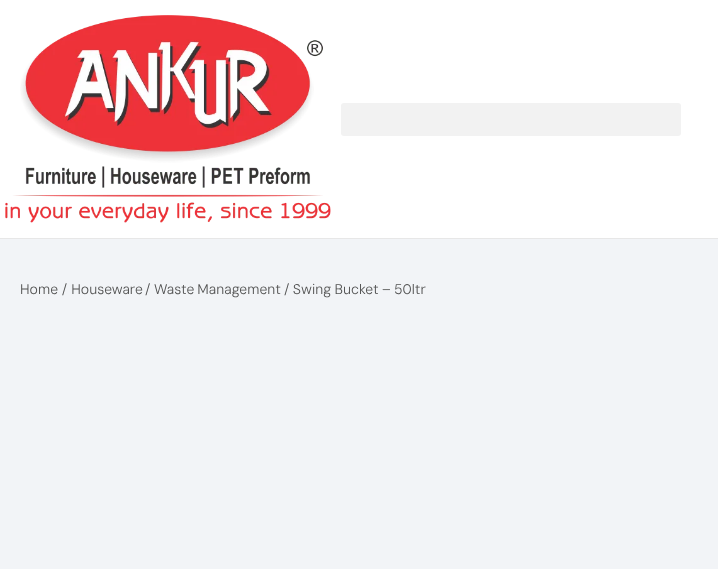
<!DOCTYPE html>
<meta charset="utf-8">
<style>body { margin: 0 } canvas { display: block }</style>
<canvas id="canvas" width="718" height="569"></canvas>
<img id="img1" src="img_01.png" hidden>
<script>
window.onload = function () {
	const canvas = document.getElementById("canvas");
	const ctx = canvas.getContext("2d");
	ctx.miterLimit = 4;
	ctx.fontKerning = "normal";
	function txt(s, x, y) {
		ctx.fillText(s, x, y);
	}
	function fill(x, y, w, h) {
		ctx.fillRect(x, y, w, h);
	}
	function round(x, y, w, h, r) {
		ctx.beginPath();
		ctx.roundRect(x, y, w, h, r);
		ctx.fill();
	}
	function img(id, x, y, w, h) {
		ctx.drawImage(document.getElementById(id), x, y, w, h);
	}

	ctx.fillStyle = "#FFFFFF";
	fill(0, 0, 718, 569);
	ctx.fillStyle = "#E7E7E7";
	fill(0, 238, 718, 1);
	img("img1", 5, 15, 326, 208);
	ctx.fillStyle = "#F2F2F2";
	round(341, 103, 340, 33, 3);
	ctx.fillStyle = "#F2F4F7";
	fill(0, 239, 718, 330);
	ctx.font = "300 14px DM Sans";
	ctx.fillStyle = "#525252";
	txt("Home / Houseware", 20, 294);
	txt("/", 145, 294);
	ctx.wordSpacing = "-1px";
	txt("Waste Management", 154, 294);
	ctx.wordSpacing = "-0.5px";
	txt("/ Swing Bucket – 50ltr", 284, 294);
};
</script>
